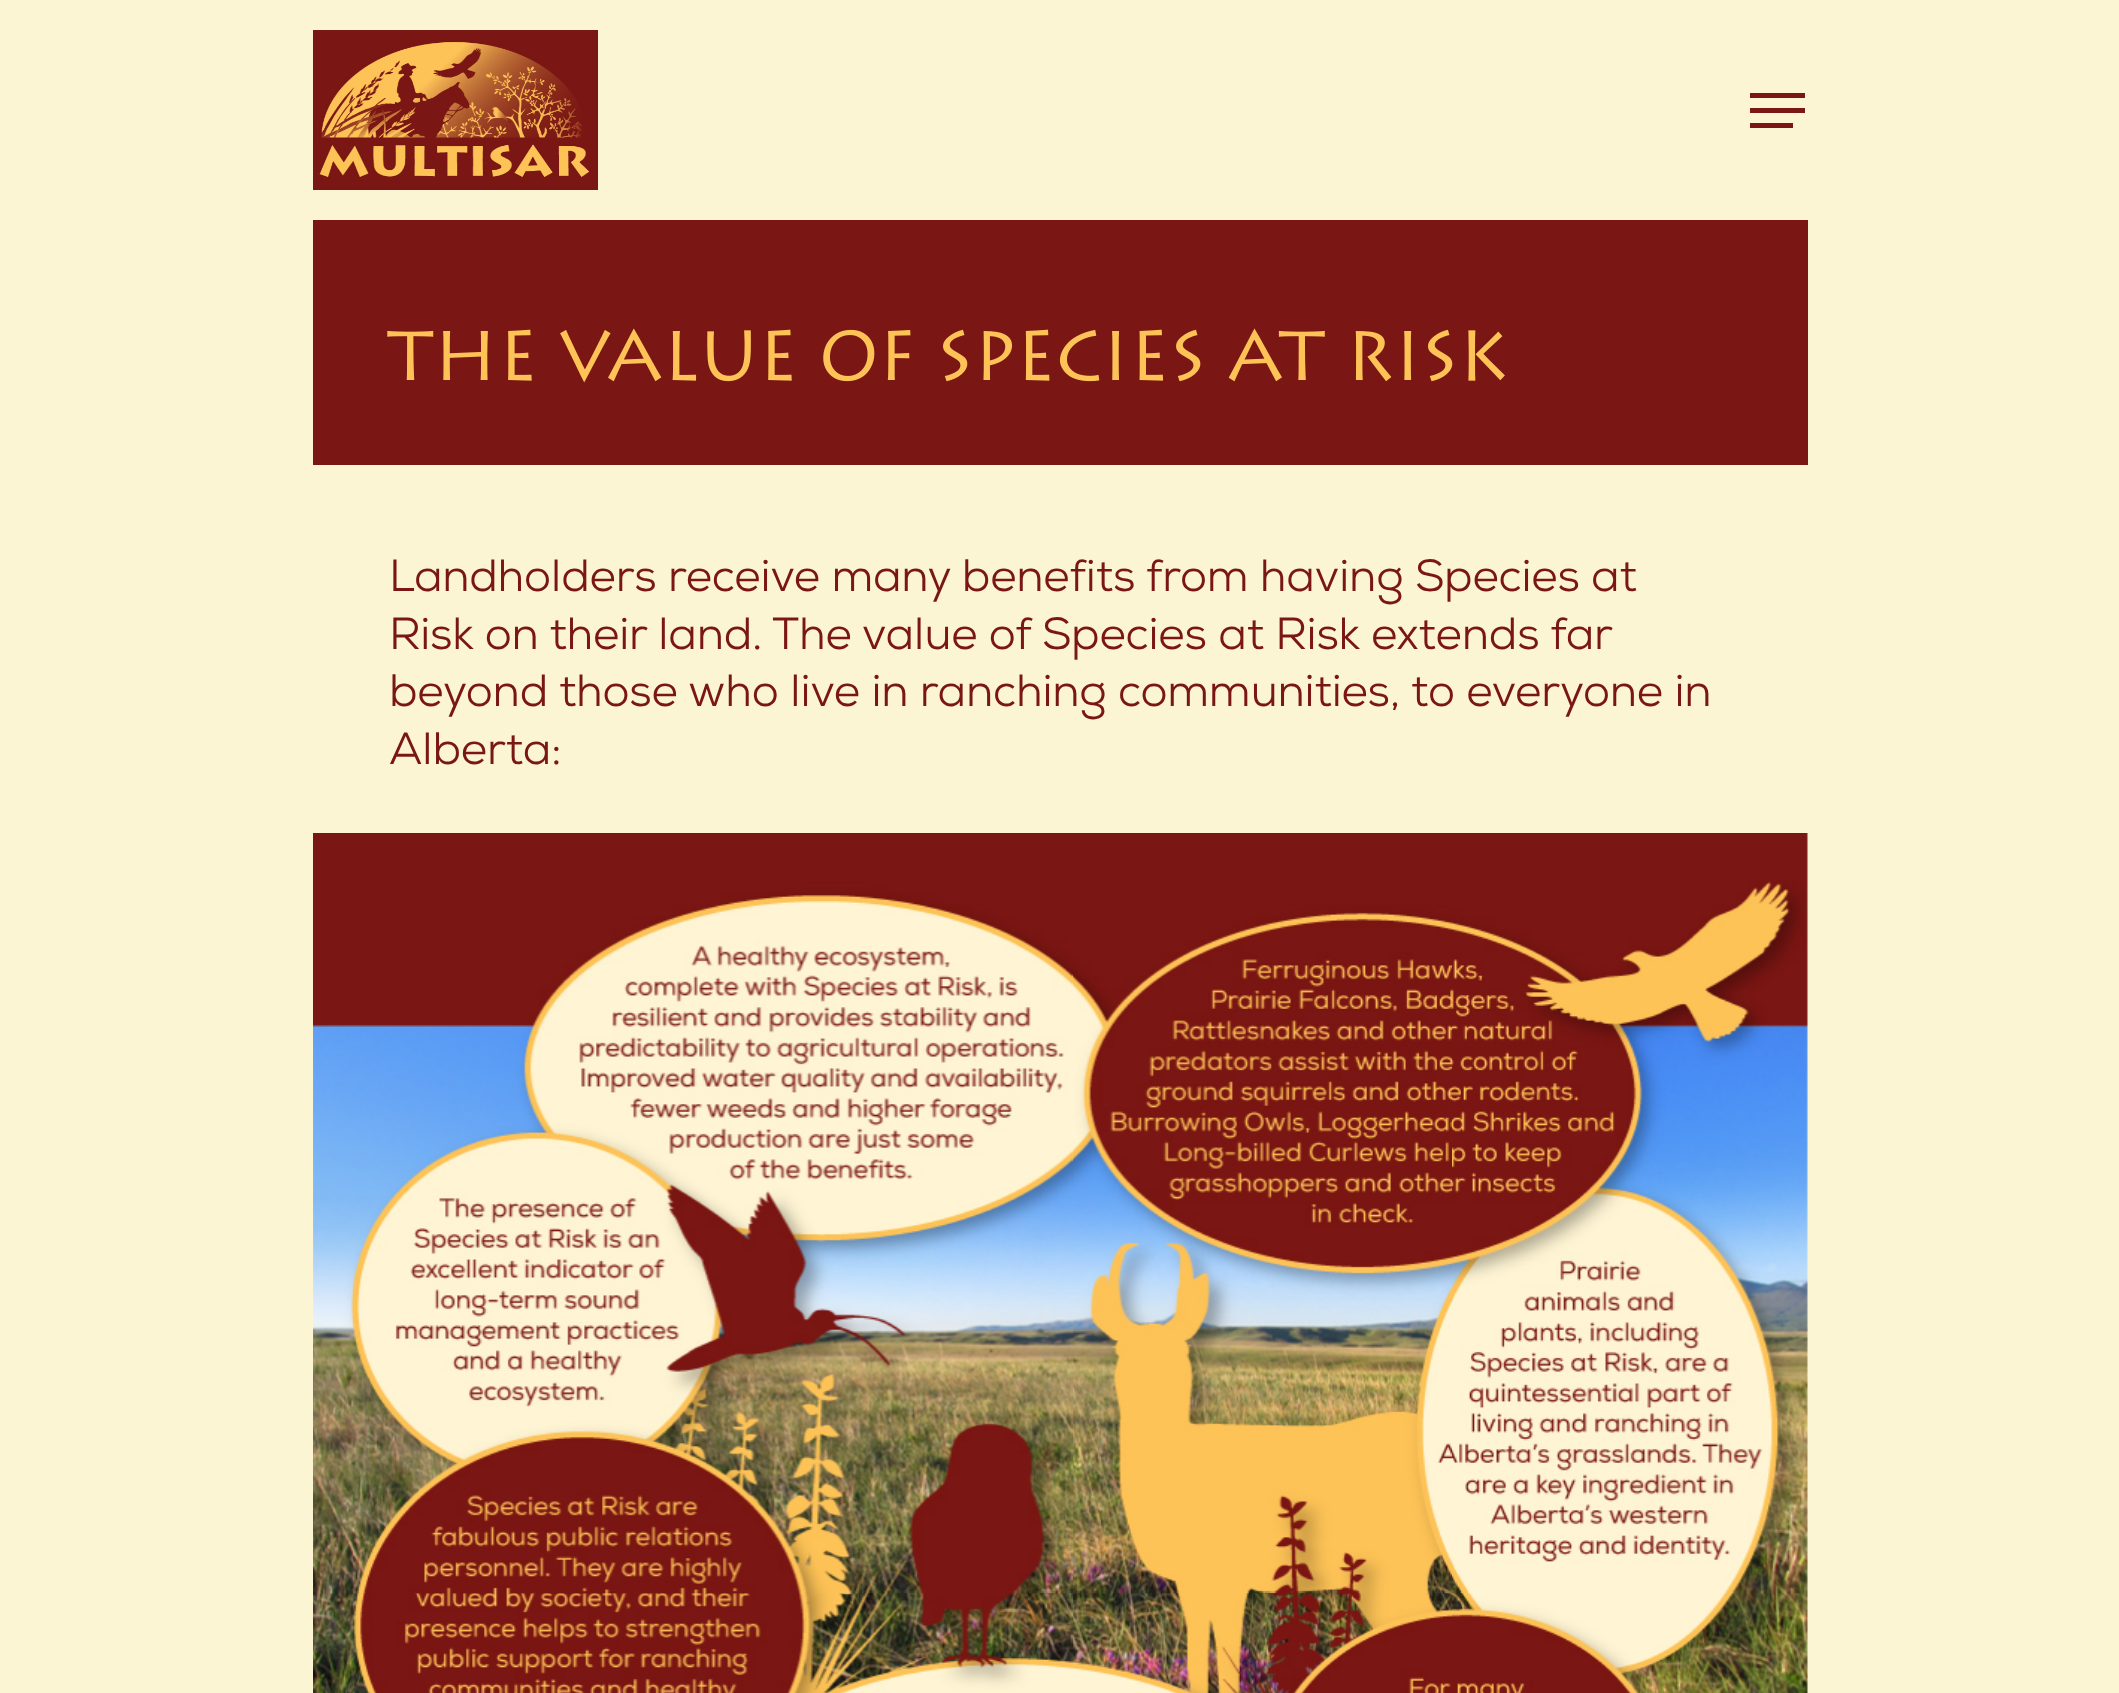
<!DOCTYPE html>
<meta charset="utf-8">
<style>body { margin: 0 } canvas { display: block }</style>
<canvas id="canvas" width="2119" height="1693"></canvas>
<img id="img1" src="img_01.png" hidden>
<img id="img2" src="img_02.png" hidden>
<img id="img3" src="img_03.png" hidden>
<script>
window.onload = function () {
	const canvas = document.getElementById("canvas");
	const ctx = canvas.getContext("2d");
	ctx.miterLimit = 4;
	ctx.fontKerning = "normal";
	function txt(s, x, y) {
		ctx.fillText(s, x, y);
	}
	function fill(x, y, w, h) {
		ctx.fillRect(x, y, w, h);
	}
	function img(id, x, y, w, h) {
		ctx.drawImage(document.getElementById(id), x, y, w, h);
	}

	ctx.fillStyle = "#FBF5D3";
	fill(0, 0, 2119, 1693);
	ctx.fillStyle = "#7A1714";
	fill(313, 30, 285, 160);
	img("img1", 319, 42, 271, 135);
	fill(1750, 93, 55, 5);
	fill(1750, 123, 43, 5);
	fill(1750, 108, 55, 5);
	ctx.fillStyle = "#7A1613";
	fill(313, 220, 1495, 245);
	img("img2", 387, 328, 1118, 55);
	img("img3", 313, 833, 1495, 860);
	ctx.letterSpacing = "-0.25px";
	ctx.font = "45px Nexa";
	txt("Landholders receive many benefits from having Species at", 389, 591);
	txt("Risk on their land. The value of Species at Risk extends far", 389, 649);
	txt("beyond those who live in ranching communities, to everyone in", 389, 706);
	txt("Alberta:", 389, 764);
};
</script>
